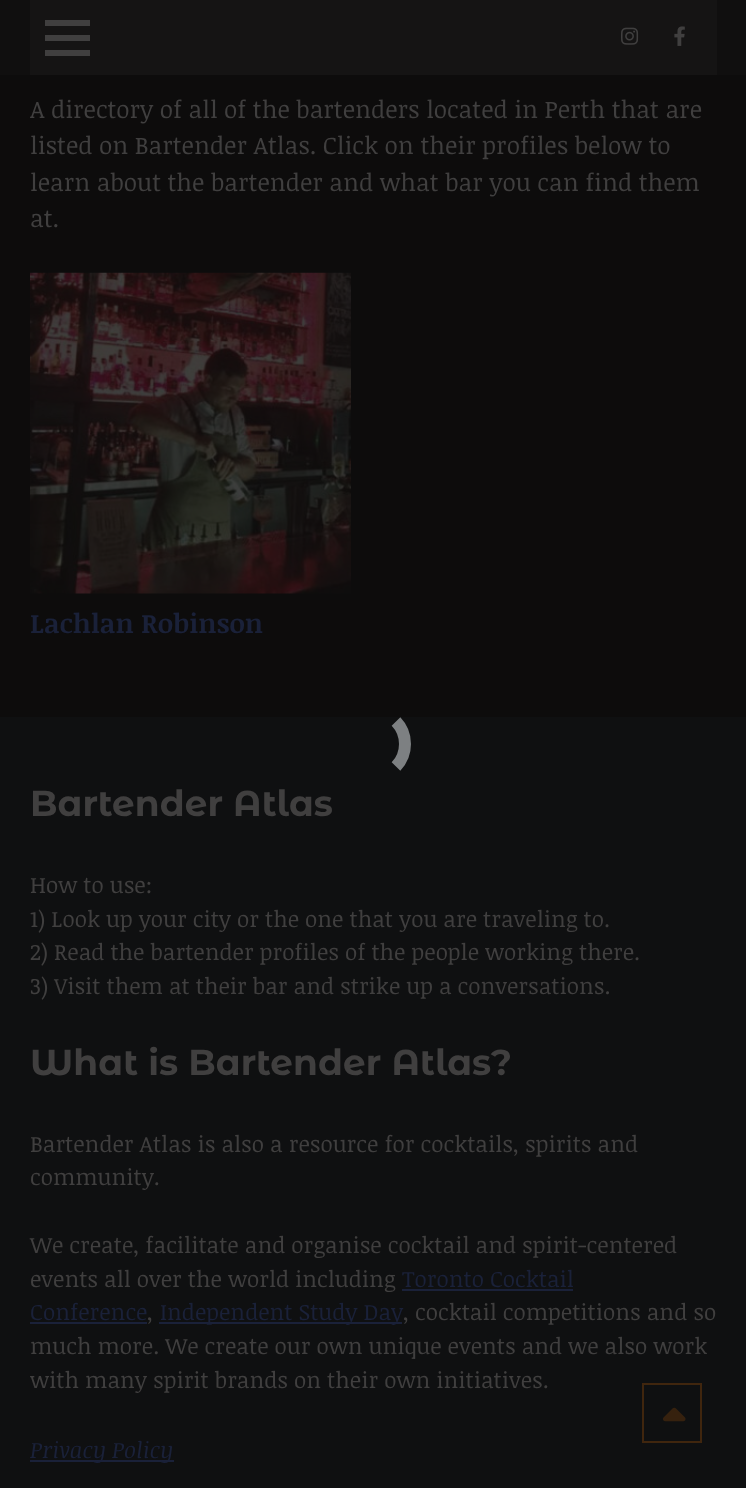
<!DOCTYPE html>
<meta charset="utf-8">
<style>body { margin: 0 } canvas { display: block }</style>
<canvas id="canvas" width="746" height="1488"></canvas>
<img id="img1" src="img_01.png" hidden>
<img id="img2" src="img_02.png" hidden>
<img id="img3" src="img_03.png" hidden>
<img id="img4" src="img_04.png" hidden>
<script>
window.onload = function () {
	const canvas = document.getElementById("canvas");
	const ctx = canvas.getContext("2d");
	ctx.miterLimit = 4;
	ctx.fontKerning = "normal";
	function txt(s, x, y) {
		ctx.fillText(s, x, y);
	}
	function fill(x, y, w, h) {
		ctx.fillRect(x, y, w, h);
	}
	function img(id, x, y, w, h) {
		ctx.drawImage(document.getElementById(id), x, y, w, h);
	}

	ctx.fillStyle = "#0D0C0C";
	fill(0, 0, 746, 1488);
	ctx.fillStyle = "#100F0F";
	fill(0, 0, 746, 75);
	ctx.fillStyle = "#151414";
	fill(30, 0, 687, 75);
	ctx.fillStyle = "#403F3F";
	fill(45, 20, 45, 6);
	fill(45, 35, 45, 6);
	fill(45, 50, 45, 6);
	img("img1", 621, 27, 18, 18);
	img("img2", 674, 26, 11, 20);
	img("img3", 30, 272, 321, 322);
	ctx.fillStyle = "#0F1011";
	fill(0, 717, 746, 771);
	ctx.beginPath();
	ctx.moveTo(396, 721.5);
	ctx.bezierCurveTo(408, 734, 408, 754, 396, 766.5);
	ctx.moveTo(396, 721.5);
	ctx.bezierCurveTo(408, 734, 408, 754, 396, 766.5);
	ctx.moveTo(396, 721.5);
	ctx.bezierCurveTo(408, 734, 408, 754, 396, 766.5);
	ctx.strokeStyle = "#7D8082";
	ctx.lineWidth = 12;
	ctx.stroke();
	ctx.fillStyle = "#1A2139";
	fill(402, 1289, 171, 2);
	fill(30, 1322, 117, 2);
	fill(159, 1322, 243, 2);
	fill(30, 1460, 144, 2);
	ctx.strokeStyle = "#40260E";
	ctx.lineWidth = 2;
	ctx.strokeRect(643, 1384, 58, 58);
	img("img4", 663, 1407, 23, 15);
	ctx.font = "24.4px Noticia Text";
	ctx.fillStyle = "#403F3F";
	txt("A directory of all of the bartenders located in Perth that are", 30, 118);
	txt("listed on Bartender Atlas. Click on their profiles below to", 30, 154);
	txt("learn about the bartender and what bar you can find them", 30, 191);
	txt("at.", 30, 227);
	ctx.font = "bold 27px Noticia Text";
	ctx.fillStyle = "#1A2139";
	txt("Lachlan Robinson", 30, 633);
	ctx.font = "bold 36px Montserrat Alternates";
	ctx.fillStyle = "#403F3F";
	txt("Bartender Atlas", 30, 816);
	ctx.font = "22.5px Noticia Text";
	txt("How to use:", 30, 893);
	txt("1) Look up your city or the one that you are traveling to.", 30, 927);
	txt("2) Read the bartender profiles of the people working there.", 30, 960);
	txt("3) Visit them at their bar and strike up a conversations.", 30, 994);
	ctx.font = "bold 36px Montserrat Alternates";
	txt("What is Bartender Atlas?", 30, 1075);
	ctx.font = "22.5px Noticia Text";
	txt("Bartender Atlas is also a resource for cocktails, spirits and", 30, 1152);
	txt("community.", 30, 1185);
	txt("We create, facilitate and organise cocktail and spirit-centered", 30, 1253);
	txt("events all over the world including", 30, 1287);
	ctx.fillStyle = "#1A2139";
	txt("Toronto Cocktail", 402, 1287);
	txt("Conference", 30, 1320);
	ctx.fillStyle = "#403F3F";
	txt(",", 147, 1320);
	ctx.fillStyle = "#1A2139";
	txt("Independent Study Day", 160, 1320);
	ctx.fillStyle = "#403F3F";
	txt(", cocktail competitions and so", 403, 1320);
	txt("much more. We create our own unique events and we also work", 30, 1354);
	txt("with many spirit brands on their own initiatives.", 30, 1388);
	ctx.font = "italic 22.5px Noticia Text";
	ctx.fillStyle = "#1A2139";
	txt("Privacy Policy", 30, 1458);
};
</script>
